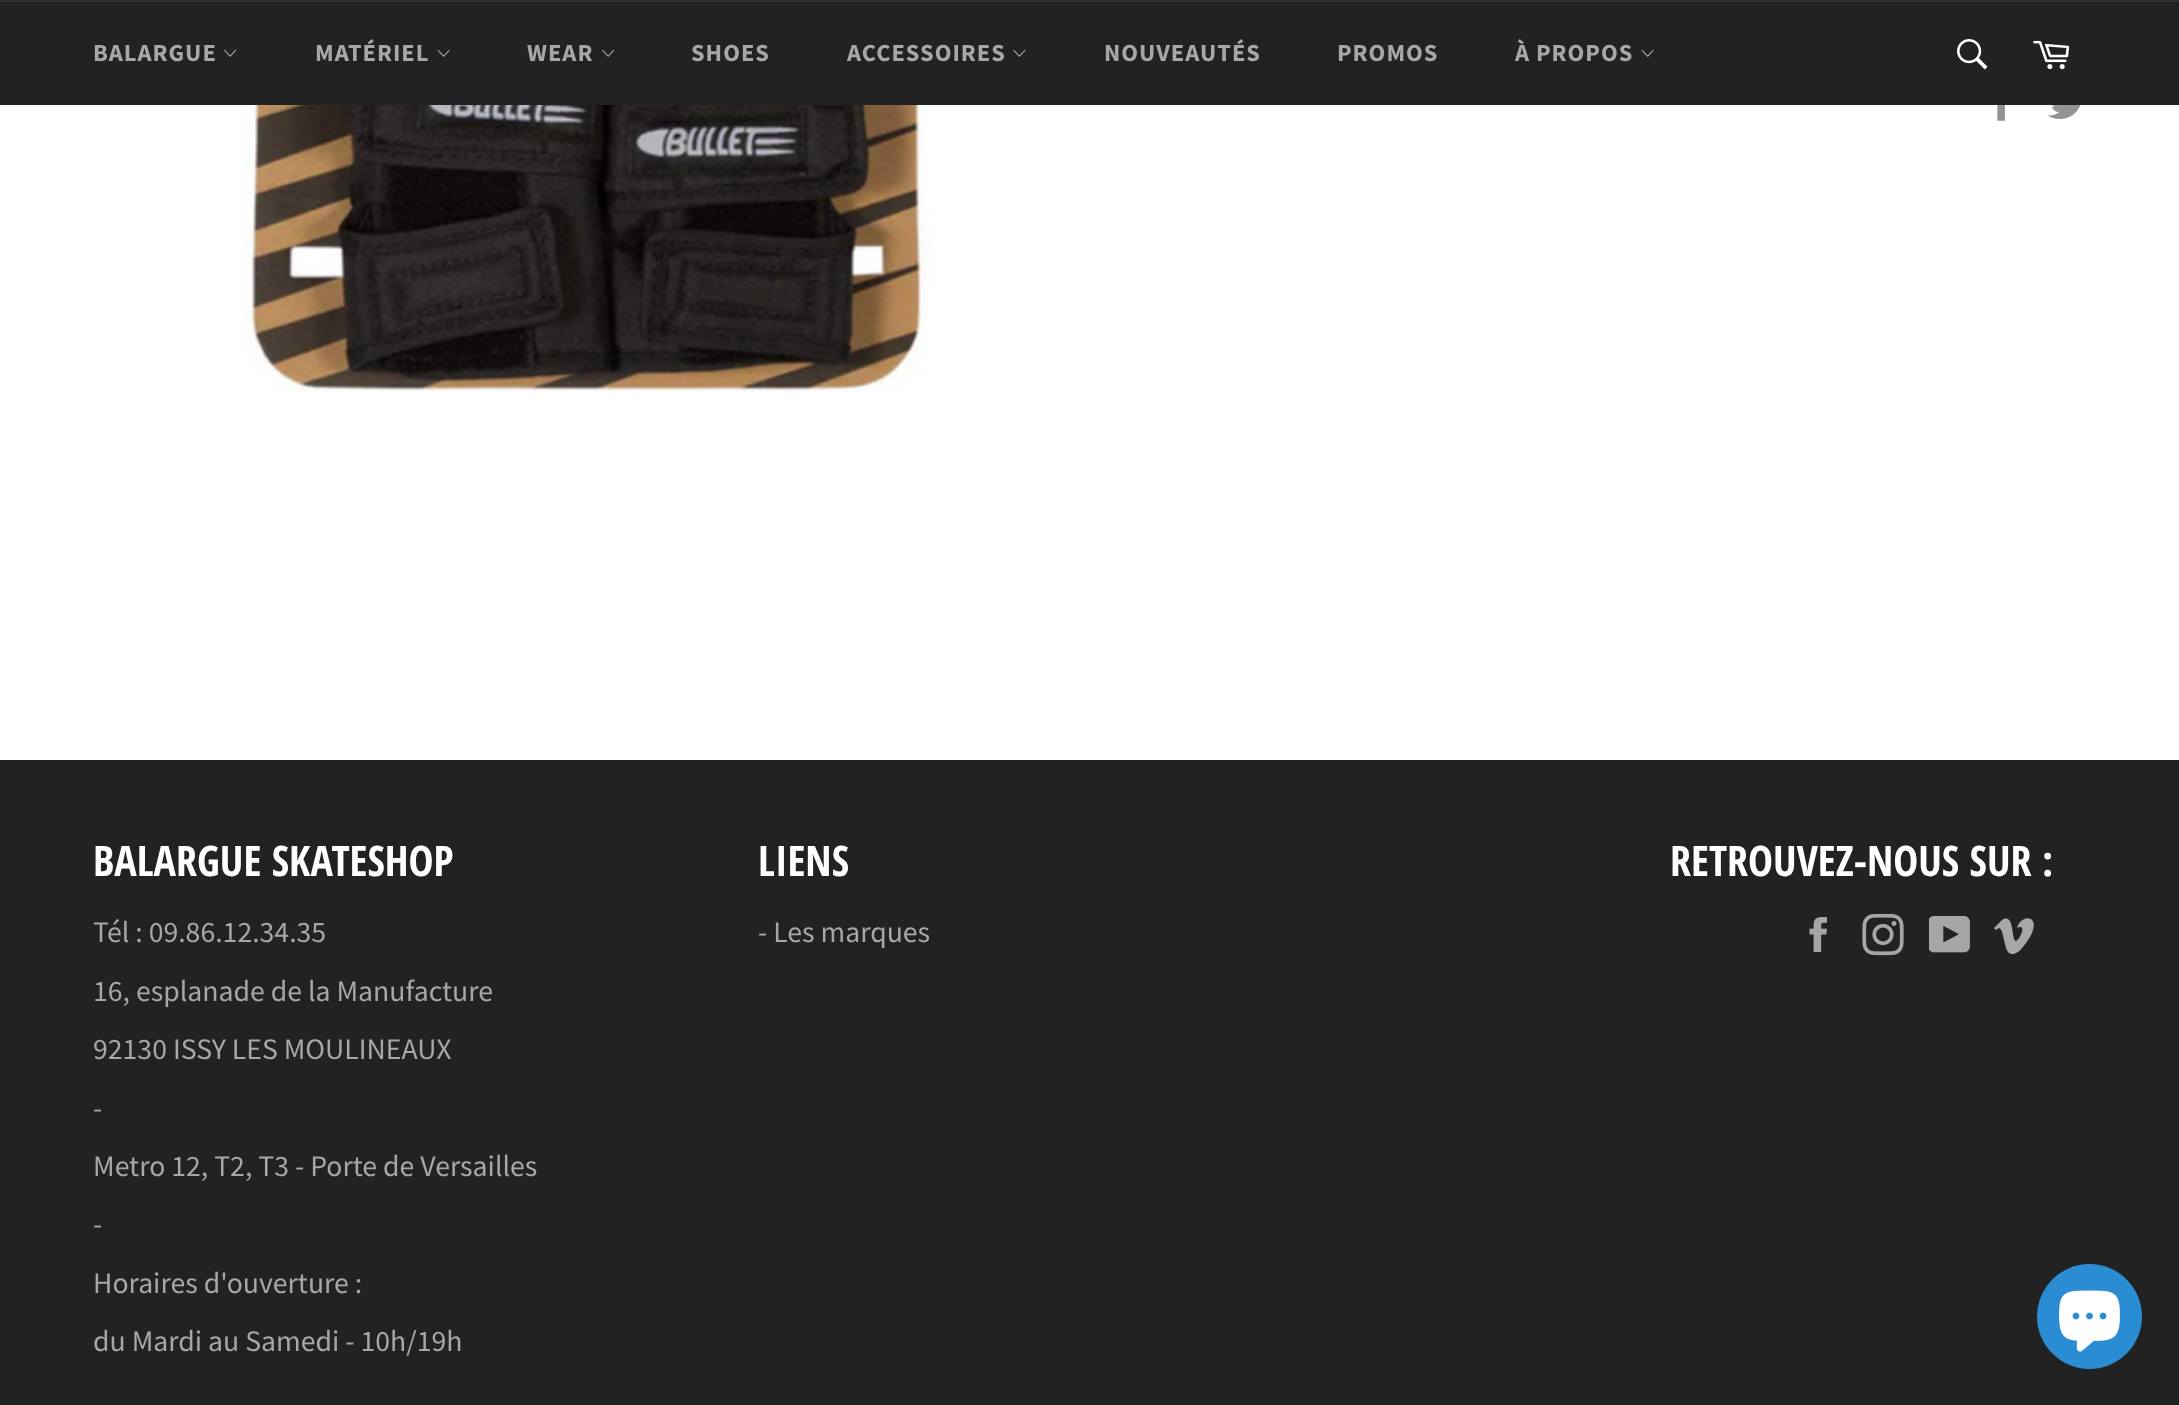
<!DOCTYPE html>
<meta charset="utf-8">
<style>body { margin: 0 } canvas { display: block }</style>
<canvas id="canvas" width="2179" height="1405"></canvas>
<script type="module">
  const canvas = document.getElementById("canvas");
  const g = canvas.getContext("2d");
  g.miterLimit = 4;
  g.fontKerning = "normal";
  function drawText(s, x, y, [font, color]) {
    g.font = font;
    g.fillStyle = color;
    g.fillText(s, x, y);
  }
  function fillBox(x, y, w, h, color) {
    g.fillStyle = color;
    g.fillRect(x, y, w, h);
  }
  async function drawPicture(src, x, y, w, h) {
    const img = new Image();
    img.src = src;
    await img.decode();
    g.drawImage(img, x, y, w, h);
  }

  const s1 = ["bold 24.5px Source Sans Pro", "#A7A7A7"];
  const s2 = ["bold 42px Open Sans Condensed", "#FFFFFF"];
  const s3 = ["29.75px Source Sans Pro", "#A7A7A7"];

  fillBox(0, 0, 2179, 1405, "#FFFFFF");
  fillBox(0, 2, 2179, 103, "#222222");
  fillBox(0, 0, 2179, 2, "#2F2F2F");
  g.letterSpacing = "1px";
  drawText("BALARGUE", 93, 61, s1);
  await drawPicture("pic1.png", 224, 49, 13, 8);
  drawText("MATÉRIEL", 315, 61, s1);
  await drawPicture("pic2.png", 437, 49, 13, 8);
  drawText("WEAR", 527, 61, s1);
  await drawPicture("pic1.png", 602, 49, 13, 8);
  drawText("SHOES", 691, 61, s1);
  drawText("ACCESSOIRES", 847, 61, s1);
  await drawPicture("pic3.png", 1013, 49, 13, 8);
  drawText("NOUVEAUTÉS", 1104, 61, s1);
  drawText("PROMOS", 1337, 61, s1);
  drawText("À PROPOS", 1515, 61, s1);
  await drawPicture("pic2.png", 1641, 49, 13, 8);
  await drawPicture("pic4.png", 1957, 39, 31, 31);
  await drawPicture("pic5.png", 2033, 40, 37, 30);
  await drawPicture("pic6.png", 244, 105, 687, 288);
  await drawPicture("pic7.png", 1997, 105, 8, 16);
  await drawPicture("pic8.png", 2047, 105, 34, 14);
  fillBox(0, 760, 2179, 645, "#222222");
  g.letterSpacing = "0px";
  drawText("BALARGUE SKATESHOP", 93, 876, s2);
  drawText("Tél : 09.86.12.34.35", 93, 942, s3);
  drawText("16, esplanade de la Manufacture", 93, 1001, s3);
  drawText("92130 ISSY LES MOULINEAUX", 93, 1059, s3);
  drawText("-", 93, 1118, s3);
  drawText("Metro 12, T2, T3 - Porte de Versailles", 93, 1176, s3);
  drawText("-", 93, 1234, s3);
  drawText("Horaires d'ouverture :", 93, 1293, s3);
  drawText("du Mardi au Samedi - 10h/19h", 93, 1351, s3);
  drawText("LIENS", 758, 876, s2);
  drawText("- Les marques", 758, 942, s3);
  drawText("RETROUVEZ-NOUS SUR :", 1670, 876, s2);
  await drawPicture("pic9.png", 1809, 917, 18, 35);
  await drawPicture("pic10.png", 1862, 914, 42, 42);
  await drawPicture("pic11.png", 1929, 916, 41, 37);
  g.fillStyle = "#A7A7A7";
  g.beginPath();
  g.moveTo(1994, 928);
  g.lineTo(1996, 930);
  g.lineTo(1999, 928);
  g.bezierCurveTo(2005, 929, 2003, 956, 2013, 954);
  g.bezierCurveTo(2019, 953, 2023, 947, 2026, 943);
  g.bezierCurveTo(2046, 916, 2022, 911, 2017, 928);
  g.bezierCurveTo(2028, 923, 2019, 941, 2016, 941);
  g.bezierCurveTo(2011, 941, 2015, 912, 2002, 920);
  g.closePath();
  g.fill();
  g.fillStyle = "#2A8DD4";
  g.beginPath();
  g.arc(2089.5, 1316.5, 52.5, 0, Math.PI * 2);
  g.fill();
  await drawPicture("pic12.png", 2059, 1290, 61, 62);
</script>
